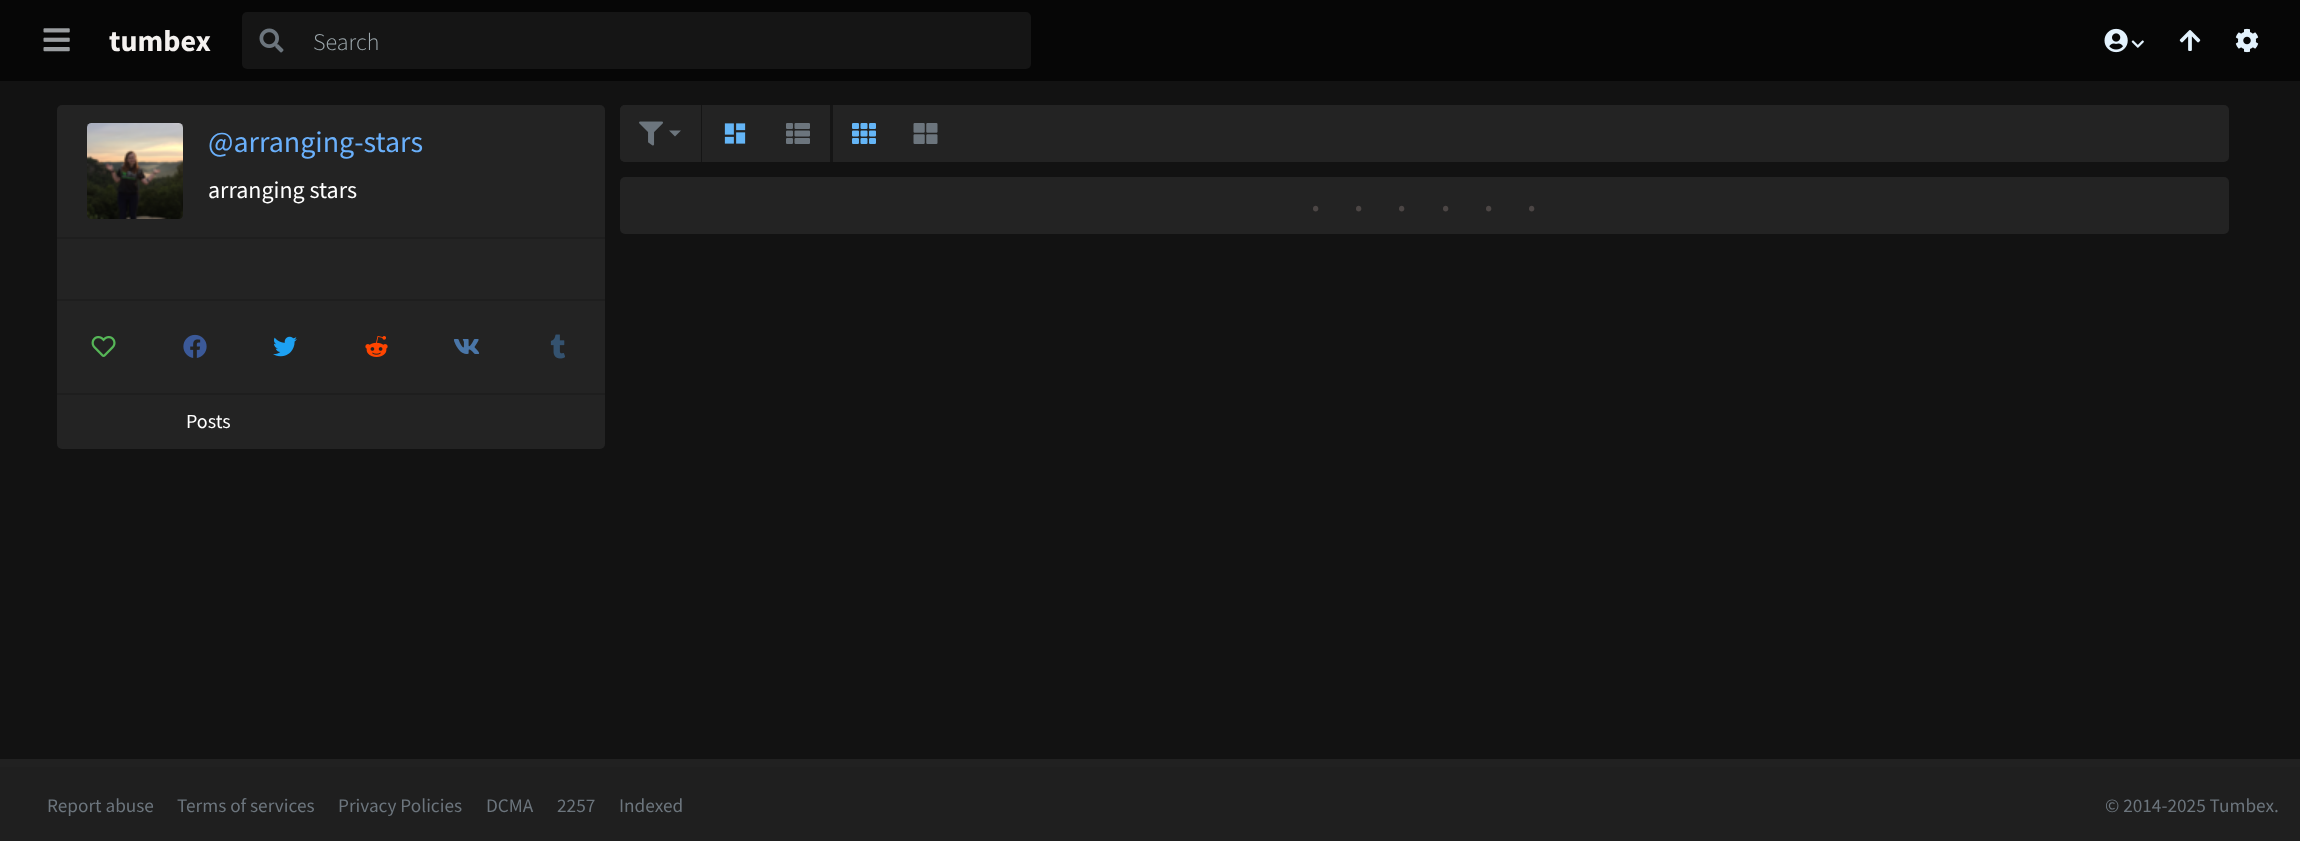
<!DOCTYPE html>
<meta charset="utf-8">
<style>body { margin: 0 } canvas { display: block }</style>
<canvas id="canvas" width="2300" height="841"></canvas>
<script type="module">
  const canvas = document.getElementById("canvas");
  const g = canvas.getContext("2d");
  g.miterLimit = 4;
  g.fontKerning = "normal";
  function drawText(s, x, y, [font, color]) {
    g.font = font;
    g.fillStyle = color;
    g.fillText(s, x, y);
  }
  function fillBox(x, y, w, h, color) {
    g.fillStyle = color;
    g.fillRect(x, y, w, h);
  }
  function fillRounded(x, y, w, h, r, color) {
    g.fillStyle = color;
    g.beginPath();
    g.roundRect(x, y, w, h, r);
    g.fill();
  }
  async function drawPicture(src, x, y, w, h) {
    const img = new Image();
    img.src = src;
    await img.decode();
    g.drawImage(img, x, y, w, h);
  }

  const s1 = ["bold 30px Source Sans Pro", "#F4F1EF"];
  const s2 = ["300 24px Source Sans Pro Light", "#9EA9AE"];
  const s3 = ["30px Source Sans Pro", "#6AB0FB"];
  const s4 = ["24px Source Sans Pro", "#FFFFFF"];
  const s5 = ["20px Source Sans Pro", "#FFFFFF"];
  const s6 = ["24px Source Sans Pro", "#4C4645"];
  const s7 = ["19.25px Source Sans Pro", "#6C757D"];

  fillBox(0, 0, 2300, 841, "#121212");
  fillBox(0, 0, 2300, 81, "#060606");
  await drawPicture("pic1.png", 43, 28, 27, 24);
  drawText("tumbex", 109, 51, s1);
  fillRounded(242, 12, 789, 57, 5, "#151515");
  await drawPicture("pic2.png", 259, 28, 25, 25);
  drawText("Search", 313, 50, s2);
  await drawPicture("pic3.png", 2104, 28, 24, 25);
  await drawPicture("pic4.png", 2131, 40, 13, 8);
  await drawPicture("pic5.png", 2179, 30, 22, 21);
  await drawPicture("pic6.png", 2235, 28, 24, 25);
  fillRounded(57, 105, 548, 344, 5, "#232323");
  fillBox(57, 237, 548, 2, "#1E1E1E");
  await drawPicture("pic7.png", 87, 123, 96, 96);
  drawText("@arranging-stars", 208, 152, s3);
  drawText("arranging stars", 208, 198, s4);
  fillBox(57, 299, 548, 2, "#1E1E1E");
  fillBox(57, 393, 548, 2, "#1E1E1E");
  await drawPicture("pic8.png", 91, 336, 25, 21);
  await drawPicture("pic9.png", 183, 334, 24, 24);
  await drawPicture("pic10.png", 273, 336, 24, 21);
  await drawPicture("pic11.png", 365, 336, 23, 21);
  await drawPicture("pic12.png", 453, 339, 27, 15);
  await drawPicture("pic13.png", 550, 334, 15, 25);
  drawText("Posts", 186, 428, s5);
  fillRounded(620, 105, 1609, 57, 5, "#232323");
  fillBox(701, 105, 1, 57, "#151515");
  g.fillStyle = "#232323";
  g.beginPath();
  g.roundRect(620, 105, 81, 57, [5, 0, 0, 5]);
  g.fill();
  await drawPicture("pic14.png", 639, 121, 24, 25);
  g.fillStyle = "#6C757D";
  g.beginPath();
  g.moveTo(669, 130.5);
  g.lineTo(681, 130.5);
  g.lineTo(675, 136.5);
  g.closePath();
  g.fill();
  fillBox(830, 105, 3, 57, "#151515");
  await drawPicture("pic15.png", 724, 123, 22, 21);
  await drawPicture("pic16.png", 786, 123, 24, 21);
  await drawPicture("pic17.png", 852, 123, 24, 21);
  await drawPicture("pic18.png", 913, 123, 25, 21);
  fillRounded(620, 177, 1609, 57, 5, "#232323");
  drawText("•", 1312, 215, s6);
  drawText("•", 1355, 215, s6);
  drawText("•", 1398, 215, s6);
  drawText("•", 1442, 215, s6);
  drawText("•", 1485, 215, s6);
  drawText("•", 1528, 215, s6);
  fillBox(0, 767, 2300, 74, "#1F1F1F");
  fillBox(0, 759, 2300, 8, "#212121");
  drawText("Report abuse", 47, 812, s7);
  drawText("Terms of services", 177, 812, s7);
  drawText("Privacy Policies", 338, 812, s7);
  drawText("DCMA", 486, 812, s7);
  drawText("2257", 557, 812, s7);
  drawText("Indexed", 619, 812, s7);
  drawText("© 2014-2025 Tumbex.", 2105, 812, s7);
</script>
